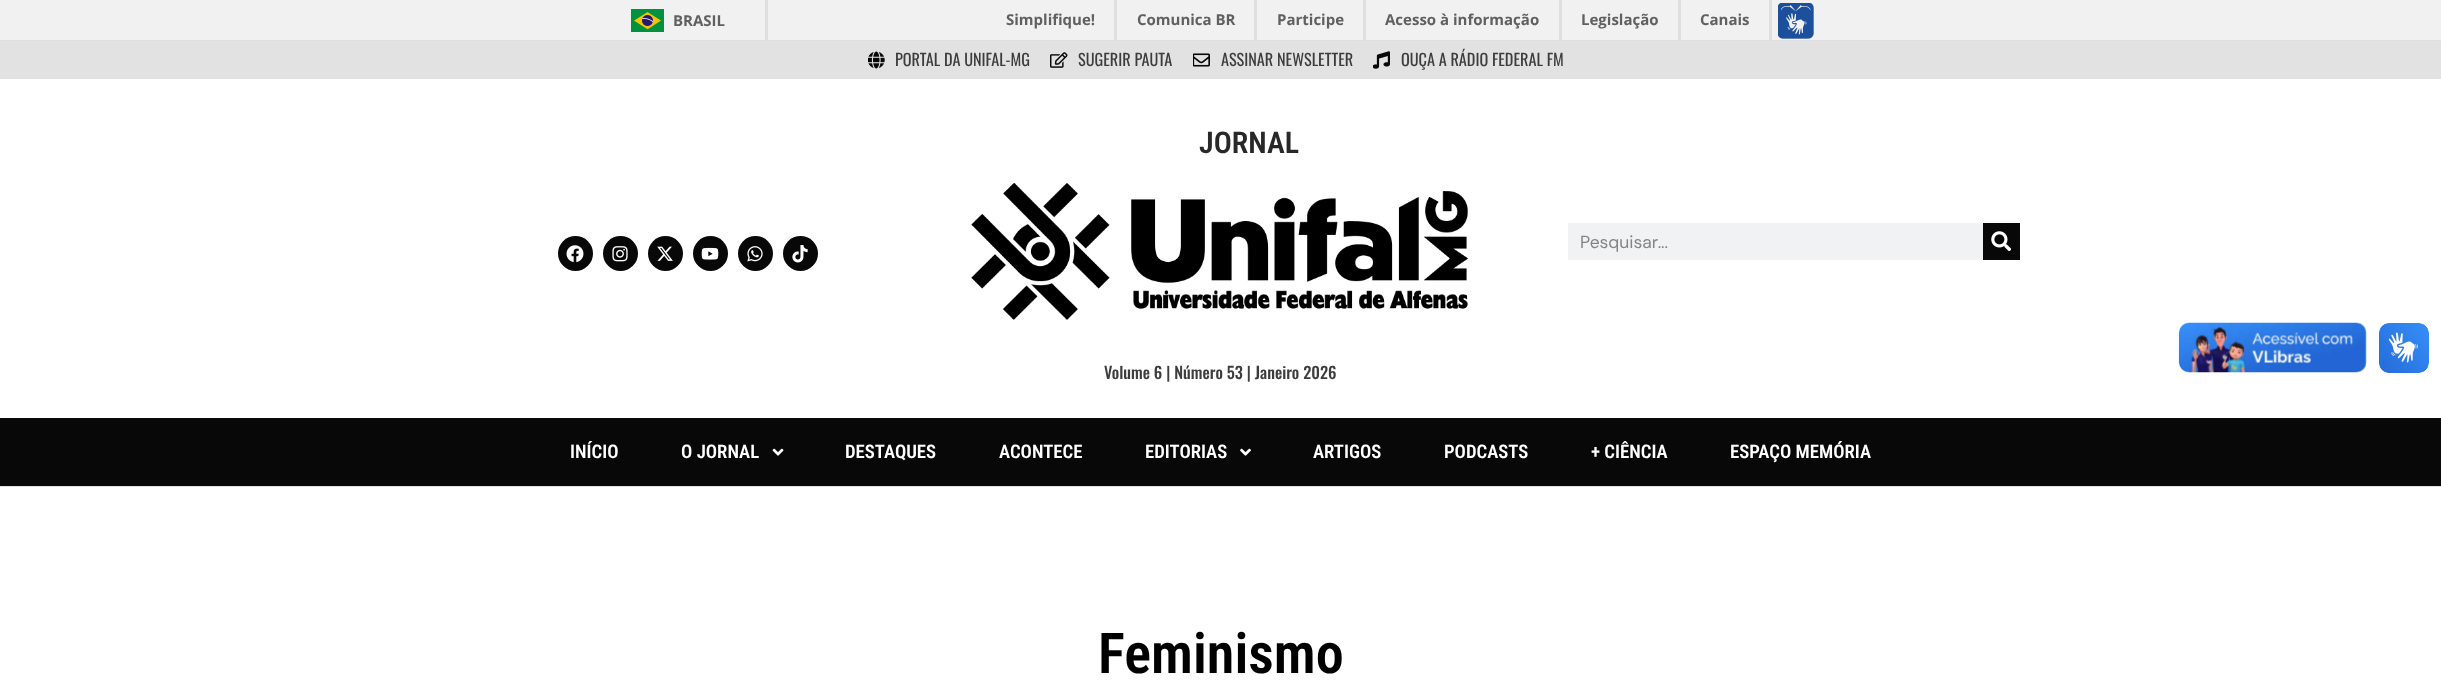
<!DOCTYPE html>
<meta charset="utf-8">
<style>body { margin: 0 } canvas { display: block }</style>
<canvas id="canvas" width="2441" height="693"></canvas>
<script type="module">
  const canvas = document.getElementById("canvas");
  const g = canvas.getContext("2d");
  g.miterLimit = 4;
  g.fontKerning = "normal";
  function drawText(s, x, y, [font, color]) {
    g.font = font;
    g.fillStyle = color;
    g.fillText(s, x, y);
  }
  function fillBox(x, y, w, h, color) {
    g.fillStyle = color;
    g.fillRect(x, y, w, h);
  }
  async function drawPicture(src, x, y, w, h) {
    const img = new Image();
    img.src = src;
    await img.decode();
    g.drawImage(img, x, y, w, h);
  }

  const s1 = ["bold 15px Open Sans", "#606060"];
  const s2 = ["16.25px Oswald", "#3D3D3D"];
  const s3 = ["600 30px Roboto Condensed", "#282828"];
  const s4 = ["500 16.25px Oswald", "#3D3D3D"];
  const s5 = ["17.5px DM Sans", "#858586"];
  const s6 = ["600 18.75px Roboto Condensed", "#FFFFFF"];
  const s7 = ["600 56.25px Roboto Condensed", "#000000"];

  fillBox(0, 0, 2441, 693, "#FFFFFF");
  fillBox(0, 0, 2441, 40, "#F1F1F1");
  fillBox(0, 40, 2441, 1, "#DFDFDF");
  fillBox(765, 0, 3, 40, "#DFDFDF");
  await drawPicture("pic1.png", 631, 9, 33, 23);
  drawText("BRASIL", 673, 26, s1);
  fillBox(1114, 0, 3, 40, "#DFDFDF");
  drawText("Simplifique!", 1006, 25, s1);
  fillBox(1254, 0, 3, 40, "#DFDFDF");
  drawText("Comunica BR", 1137, 25, s1);
  fillBox(1363, 0, 3, 40, "#DFDFDF");
  drawText("Participe", 1277, 25, s1);
  fillBox(1559, 0, 3, 40, "#DFDFDF");
  drawText("Acesso à informação", 1385, 25, s1);
  fillBox(1678, 0, 3, 40, "#DFDFDF");
  drawText("Legislação", 1581, 25, s1);
  fillBox(1769, 0, 3, 40, "#DFDFDF");
  drawText("Canais", 1700, 25, s1);
  await drawPicture("pic2.png", 1778, 3, 36, 36);
  fillBox(0, 41, 2441, 38, "#E2E2E2");
  await drawPicture("pic3.png", 868, 51, 17, 18);
  drawText("PORTAL DA UNIFAL-MG", 895, 66, s2);
  await drawPicture("pic4.png", 1050, 52, 18, 16);
  drawText("SUGERIR PAUTA", 1078, 66, s2);
  await drawPicture("pic5.png", 1193, 53, 17, 14);
  drawText("ASSINAR NEWSLETTER", 1221, 66, s2);
  await drawPicture("pic6.png", 1373, 51, 17, 18);
  drawText("OUÇA A RÁDIO FEDERAL FM", 1401, 66, s2);
  g.fillStyle = "#080808";
  g.beginPath();
  g.arc(575.5, 253.5, 17.5, 0, Math.PI * 2);
  g.fill();
  await drawPicture("pic7.png", 566, 245, 18, 18);
  g.beginPath();
  g.arc(620.5, 253.5, 17.5, 0, Math.PI * 2);
  g.fill();
  await drawPicture("pic8.png", 612, 246, 16, 16);
  g.beginPath();
  g.arc(665.5, 253.5, 17.5, 0, Math.PI * 2);
  g.fill();
  await drawPicture("pic9.png", 657, 246, 16, 15);
  g.beginPath();
  g.arc(710.5, 253.5, 17.5, 0, Math.PI * 2);
  g.fill();
  await drawPicture("pic10.png", 701, 247, 18, 13);
  g.beginPath();
  g.arc(755.5, 253.5, 17.5, 0, Math.PI * 2);
  g.fill();
  await drawPicture("pic11.png", 747, 246, 16, 16);
  g.beginPath();
  g.arc(800.5, 253.5, 17.5, 0, Math.PI * 2);
  g.fill();
  await drawPicture("pic12.png", 792, 245, 16, 18);
  drawText("JORNAL", 1199, 153, s3);
  await drawPicture("pic13.png", 971, 183, 498, 137);
  drawText("Volume 6 | Número 53 | Janeiro 2026", 1104, 379, s4);
  fillBox(1568, 223, 415, 37, "#F1F2F3");
  drawText("Pesquisar...", 1580, 248, s5);
  fillBox(1983, 223, 37, 37, "#080808");
  await drawPicture("pic14.png", 1991, 231, 20, 20);
  fillBox(0, 418, 2441, 68, "#080808");
  drawText("INÍCIO", 570, 458, s6);
  drawText("O JORNAL", 681, 458, s6);
  await drawPicture("pic15.png", 772, 448, 12, 8);
  drawText("DESTAQUES", 845, 458, s6);
  drawText("ACONTECE", 999, 458, s6);
  drawText("EDITORIAS", 1145, 458, s6);
  await drawPicture("pic16.png", 1240, 448, 11, 8);
  drawText("ARTIGOS", 1313, 458, s6);
  drawText("PODCASTS", 1444, 458, s6);
  drawText("+ CIÊNCIA", 1591, 458, s6);
  drawText("ESPAÇO MEMÓRIA", 1730, 458, s6);
  fillBox(0, 486, 2441, 1, "#E2E2E2");
  await drawPicture("pic17.png", 2178, 322, 189, 51);
  await drawPicture("pic18.png", 2379, 323, 50, 50);
  drawText("Feminismo", 1098, 673, s7);
</script>
